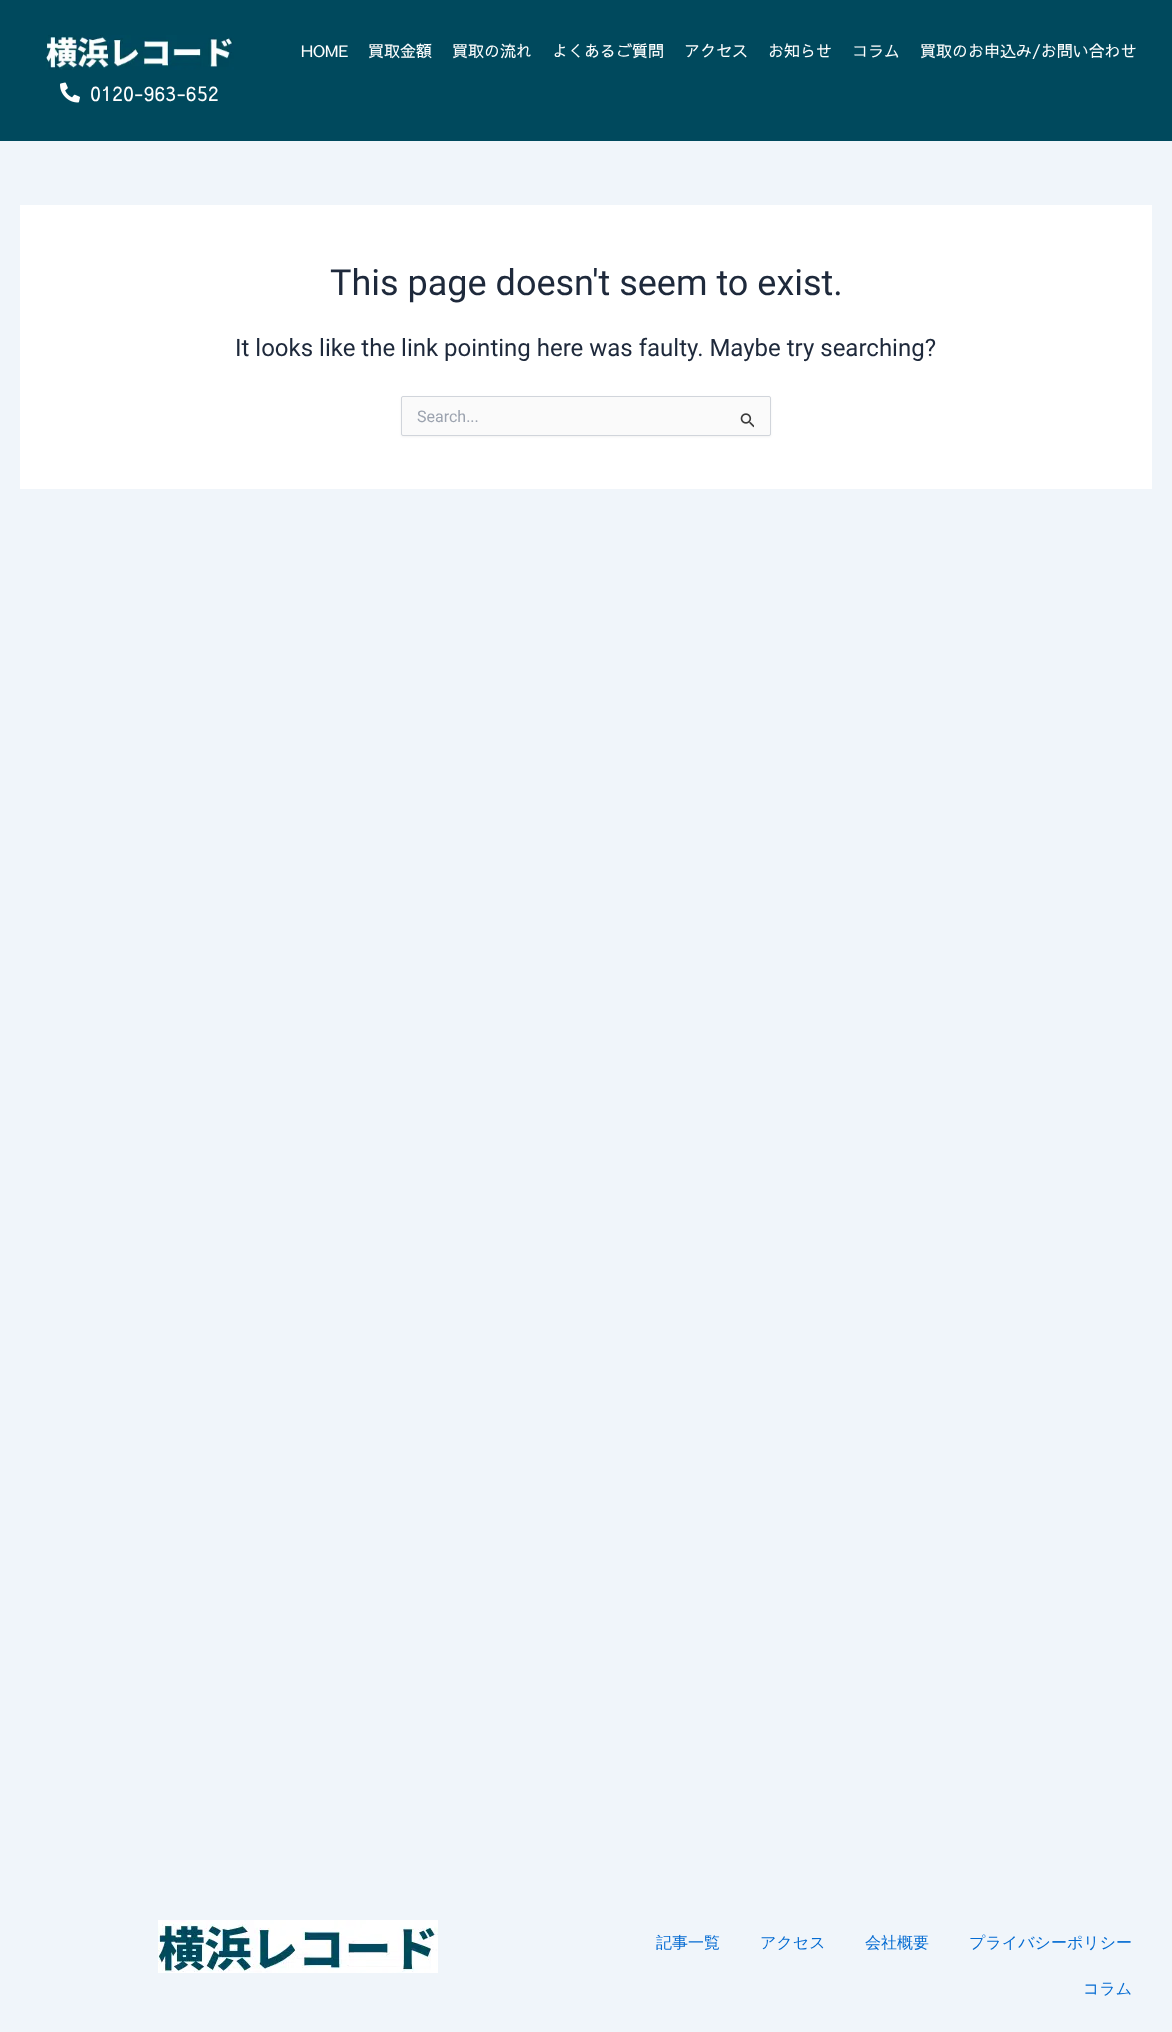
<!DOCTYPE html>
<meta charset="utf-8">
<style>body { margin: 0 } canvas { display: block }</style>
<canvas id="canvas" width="1172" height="2032"></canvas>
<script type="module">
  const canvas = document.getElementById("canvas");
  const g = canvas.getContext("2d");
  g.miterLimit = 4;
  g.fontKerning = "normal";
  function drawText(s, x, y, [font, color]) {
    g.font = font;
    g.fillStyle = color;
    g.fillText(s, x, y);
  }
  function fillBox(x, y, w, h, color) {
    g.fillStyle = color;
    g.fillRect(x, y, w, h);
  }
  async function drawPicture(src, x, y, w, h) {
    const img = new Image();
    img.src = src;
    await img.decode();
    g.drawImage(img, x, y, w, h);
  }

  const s1 = ["16px Sawarabi Gothic", "#FFFFFF"];
  const s2 = ["20px Sawarabi Gothic", "#FFFFFF"];
  const s3 = ["36px Roboto", "#1E293B"];
  const s4 = ["24px Roboto", "#1E293B"];
  const s5 = ["16px Roboto", "#9CA3AF"];
  const s6 = ["500 16px WenQuanYi Zen Hei", "#046BD2"];

  fillBox(0, 0, 1172, 2032, "#F0F5FA");
  fillBox(0, 0, 1172, 141, "#00495D");
  await drawPicture("pic1.png", 45, 35, 189, 35);
  drawText("HOME", 301, 57, s1);
  drawText("買取金額", 368, 57, s1);
  drawText("買取の流れ", 452, 57, s1);
  drawText("よくあるご質問", 552, 57, s1);
  drawText("アクセス", 684, 57, s1);
  drawText("お知らせ", 768, 57, s1);
  drawText("コラム", 852, 57, s1);
  drawText("買取のお申込み/お問い合わせ", 920, 57, s1);
  await drawPicture("pic2.png", 60, 82, 20, 21);
  drawText("0120-963-652", 90, 101, s2);
  fillBox(20, 205, 1132, 284, "#FFFFFF");
  drawText("This page doesn't seem to exist.", 330, 295, s3);
  drawText("It looks like the link pointing here was faulty. Maybe try searching?", 235, 356, s4);
  g.fillStyle = "rgba(0, 0, 0, 0.05)";
  g.filter = "blur(1px)";
  g.beginPath();
  g.roundRect(401, 397, 370, 40, 2);
  g.fill();
  g.filter = "none";
  g.fillStyle = "#FAFAFA";
  g.beginPath();
  g.roundRect(401.5, 396.5, 369, 39, 1.5);
  g.fill();
  g.strokeStyle = "#D1D5DB";
  g.stroke();
  drawText("Search...", 417, 422, s5);
  await drawPicture("pic3.png", 740, 413, 14, 15);
  await drawPicture("pic4.png", 158, 1920, 280, 53);
  drawText("記事一覧", 656, 1948, s6);
  drawText("アクセス", 760, 1948, s6);
  drawText("会社概要", 865, 1948, s6);
  drawText("プライバシーポリシー", 969, 1948, s6);
  drawText("コラム", 1083, 1994, s6);
</script>
